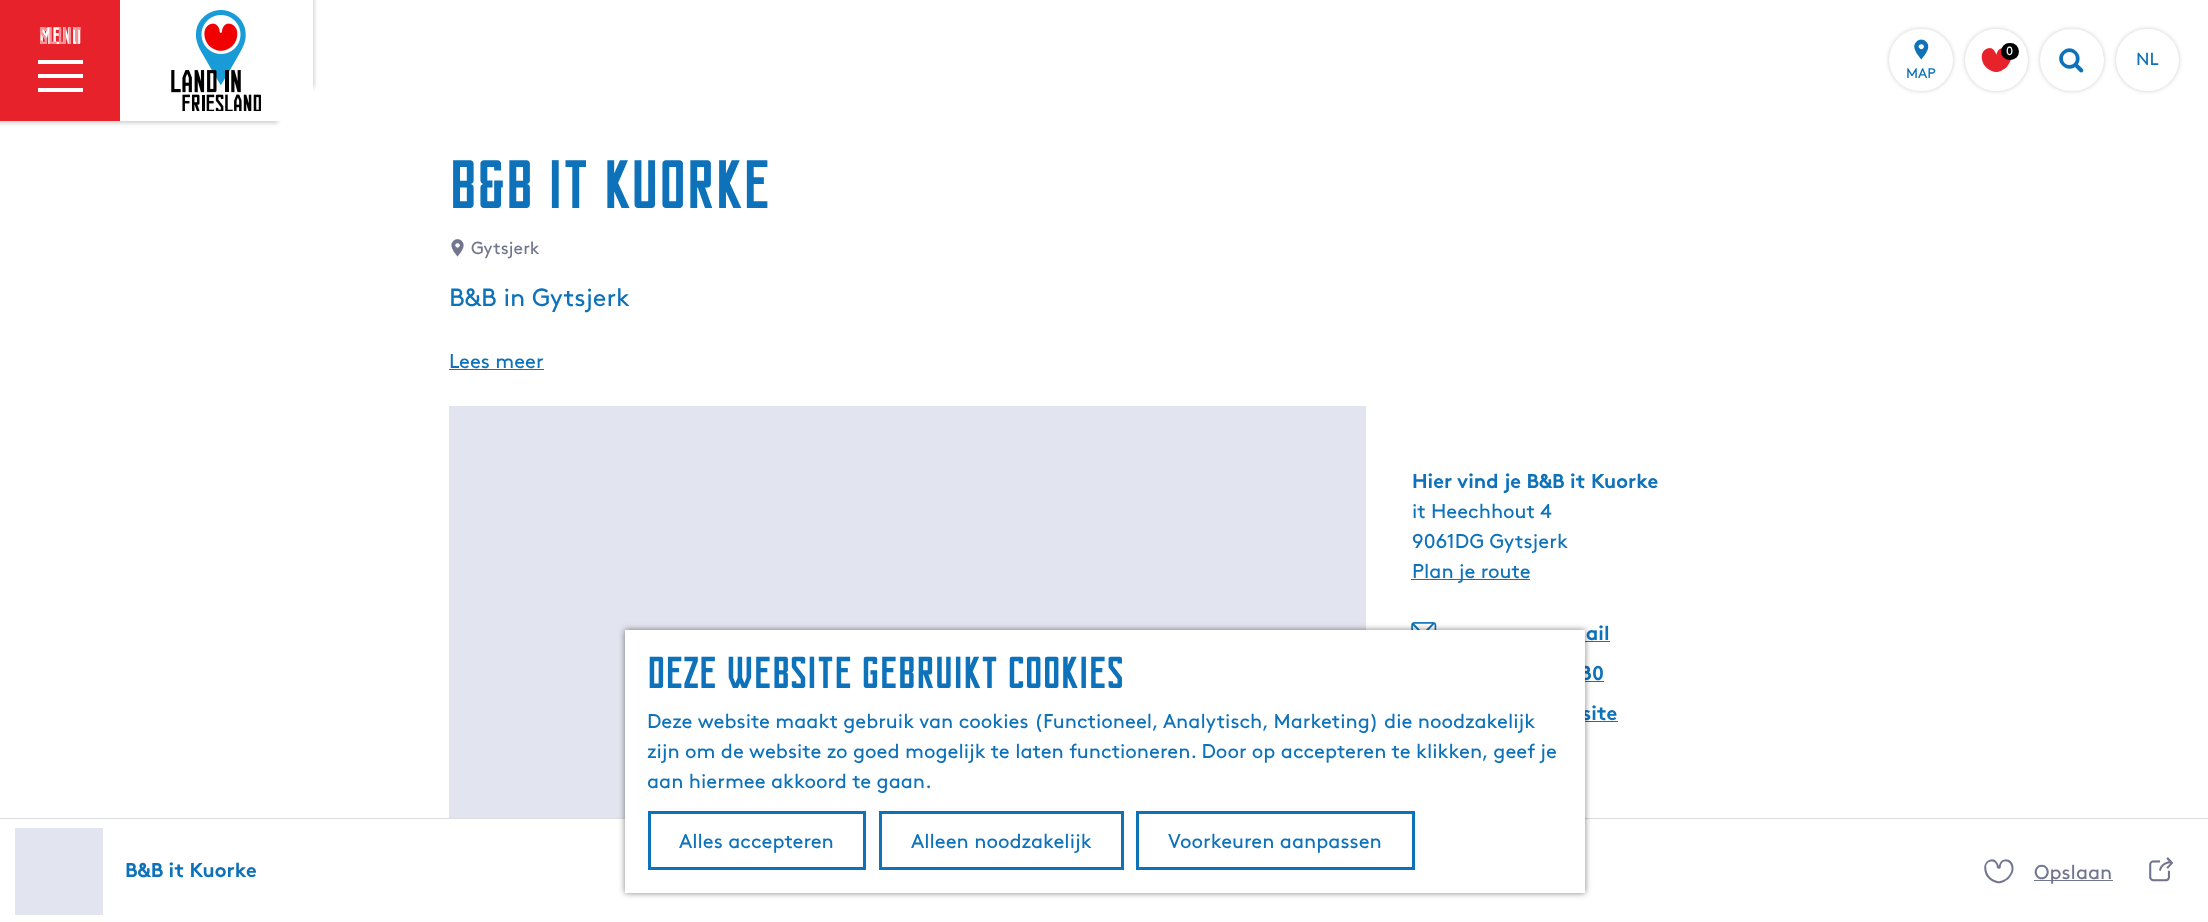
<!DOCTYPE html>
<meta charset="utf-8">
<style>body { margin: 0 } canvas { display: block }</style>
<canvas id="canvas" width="2208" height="922"></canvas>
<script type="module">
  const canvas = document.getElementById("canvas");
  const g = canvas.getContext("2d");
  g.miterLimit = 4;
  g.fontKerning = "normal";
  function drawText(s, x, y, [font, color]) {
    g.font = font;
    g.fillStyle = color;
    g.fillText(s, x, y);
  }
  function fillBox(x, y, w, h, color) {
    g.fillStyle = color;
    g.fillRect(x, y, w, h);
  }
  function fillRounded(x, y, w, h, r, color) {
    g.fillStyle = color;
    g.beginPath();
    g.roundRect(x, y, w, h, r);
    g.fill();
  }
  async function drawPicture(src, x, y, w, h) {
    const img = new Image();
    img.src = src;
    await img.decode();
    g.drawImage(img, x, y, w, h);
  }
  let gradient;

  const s1 = ["24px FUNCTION", "#FFFFFF"];
  const s2 = ["24px FUNCTION", "#F49397"];
  const s3 = ["12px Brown", "#FFFFFF"];
  const s4 = ["14px Brown", "#0D72B9"];
  const s5 = ["17.5px Brown", "#0D72B9"];
  const s6 = ["68.75px FUNCTION", "#0D72B9"];
  const s7 = ["17.5px Brown", "#71758E"];
  const s8 = ["25px Brown", "#0D72B9"];
  const s9 = ["20px Brown", "#0D72B9"];
  const s10 = ["bold 20px Brown", "#0D72B9"];
  const s11 = ["20px Brown", "#71758E"];
  const s12 = ["45px FUNCTION", "#0D72B9"];

  fillBox(0, 0, 2208, 922, "#FFFFFF");
  g.fillStyle = "rgba(0, 0, 0, 0.2)";
  g.filter = "blur(2px)";
  g.beginPath();
  g.rect(1, -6, 313, 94);
  g.fill();
  g.filter = "none";
  g.filter = "blur(2px)";
  g.beginPath();
  g.rect(-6, 1, 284, 122);
  g.fill();
  g.filter = "none";
  fillBox(0, 0, 120, 121, "#E8222A");
  drawText("menu", 39, 44, s1);
  drawText("sluit", 39, 44, s2);
  fillBox(38, 74, 45, 4, "#FFFFFF");
  fillBox(38, 60, 45, 4, "#FFFFFF");
  fillBox(38, 88, 45, 4, "#FFFFFF");
  gradient = g.createLinearGradient(295, 139, 138, -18);
  gradient.addColorStop(0.08, "rgba(255, 255, 255, 0)");
  gradient.addColorStop(0.08, "#FFFFFF");
  g.fillStyle = gradient;
  g.fillRect(120, 0, 193, 121);
  await drawPicture("pic1.png", 171, 10, 90, 101);
  g.fillStyle = "rgba(0, 0, 0, 0.2)";
  g.filter = "blur(2px)";
  g.beginPath();
  g.roundRect(1965, 29, 63, 62, 31);
  g.fill();
  g.filter = "none";
  fillRounded(1965, 29, 63, 62, 31, "#FFFFFF");
  await drawPicture("pic2.png", 1981, 48, 30, 24);
  fillRounded(2001, 43, 18, 17, 8.5, "#000000");
  drawText("0", 2006, 55, s3);
  g.fillStyle = "rgba(0, 0, 0, 0.2)";
  g.filter = "blur(2px)";
  g.beginPath();
  g.roundRect(2040, 29, 64, 62, 31);
  g.fill();
  g.filter = "none";
  fillRounded(2040, 29, 64, 62, 31, "#FFFFFF");
  await drawPicture("pic3.png", 2059, 48, 25, 25);
  g.fillStyle = "rgba(0, 0, 0, 0.2)";
  g.filter = "blur(2px)";
  g.beginPath();
  g.roundRect(1889, 29, 64, 62, 31);
  g.fill();
  g.filter = "none";
  fillRounded(1889, 29, 64, 62, 31, "#FFFFFF");
  await drawPicture("pic4.png", 1914, 39, 15, 21);
  drawText("MAP", 1906, 78, s4);
  g.fillStyle = "rgba(0, 0, 0, 0.2)";
  g.filter = "blur(2px)";
  g.beginPath();
  g.roundRect(2116, 29, 63, 62, 31);
  g.fill();
  g.filter = "none";
  fillRounded(2116, 29, 63, 62, 31, "#FFFFFF");
  drawText("NL", 2136, 65, s5);
  drawText("B&B it Kuorke", 449, 208, s6);
  await drawPicture("pic5.png", 451, 239, 13, 18);
  drawText("Gytsjerk", 471, 254, s7);
  drawText("B&B in Gytsjerk", 449, 306, s8);
  drawText("Lees meer", 449, 368, s9);
  fillBox(449, 369, 95, 1, "#0D72B9");
  fillBox(449, 406, 917, 412, "#E2E4EF");
  drawText("Hier vind je B&B it Kuorke", 1412, 488, s10);
  drawText("it Heechhout 4", 1412, 518, s9);
  drawText("9061DG Gytsjerk", 1412, 548, s9);
  fillBox(1411, 579, 119, 1, "#0D72B9");
  drawText("Plan je route", 1412, 578, s9);
  await drawPicture("pic6.png", 1411, 622, 26, 8);
  drawText("ail", 1586, 640, s10);
  fillBox(1585, 641, 25, 1, "#0D72B9");
  drawText("80", 1580, 680, s10);
  fillBox(1585, 681, 19, 1, "#0D72B9");
  drawText("site", 1582, 720, s10);
  fillBox(1585, 721, 33, 1, "#0D72B9");
  fillBox(0, 818, 2208, 1, "#DCDDDE");
  fillBox(15, 828, 88, 87, "#E2E4EF");
  drawText("B&B it Kuorke", 125, 877, s10);
  await drawPicture("pic7.png", 1984, 859, 30, 25);
  fillBox(2034, 880, 79, 1, "#71758E");
  drawText("Opslaan", 2034, 879, s11);
  await drawPicture("pic8.png", 2149, 857, 25, 25);
  g.fillStyle = "rgba(0, 0, 0, 0.5)";
  g.filter = "blur(3px)";
  g.beginPath();
  g.rect(625, 630, 960, 263);
  g.fill();
  g.filter = "none";
  fillBox(625, 630, 960, 263, "#FFFFFF");
  drawText("Deze website gebruikt cookies", 647, 688, s12);
  drawText("Deze website maakt gebruik van cookies (Functioneel, Analytisch, Marketing) die noodzakelijk", 647, 728, s9);
  drawText("zijn om de website zo goed mogelijk te laten functioneren. Door op accepteren te klikken, geef je", 647, 758, s9);
  g.save();
  g.beginPath();
  g.rect(648, 653, 915, 158);
  g.clip();
  drawText("aan hiermee akkoord te gaan.", 647, 788, s9);
  g.restore();
  g.strokeStyle = "#0D72B9";
  g.lineWidth = 3;
  g.strokeRect(649.5, 812.5, 215, 56);
  drawText("Alles accepteren", 679, 848, s9);
  g.strokeRect(880.5, 812.5, 242, 56);
  drawText("Alleen noodzakelijk", 911, 848, s9);
  g.strokeRect(1137.5, 812.5, 276, 56);
  drawText("Voorkeuren aanpassen", 1168, 848, s9);
</script>
